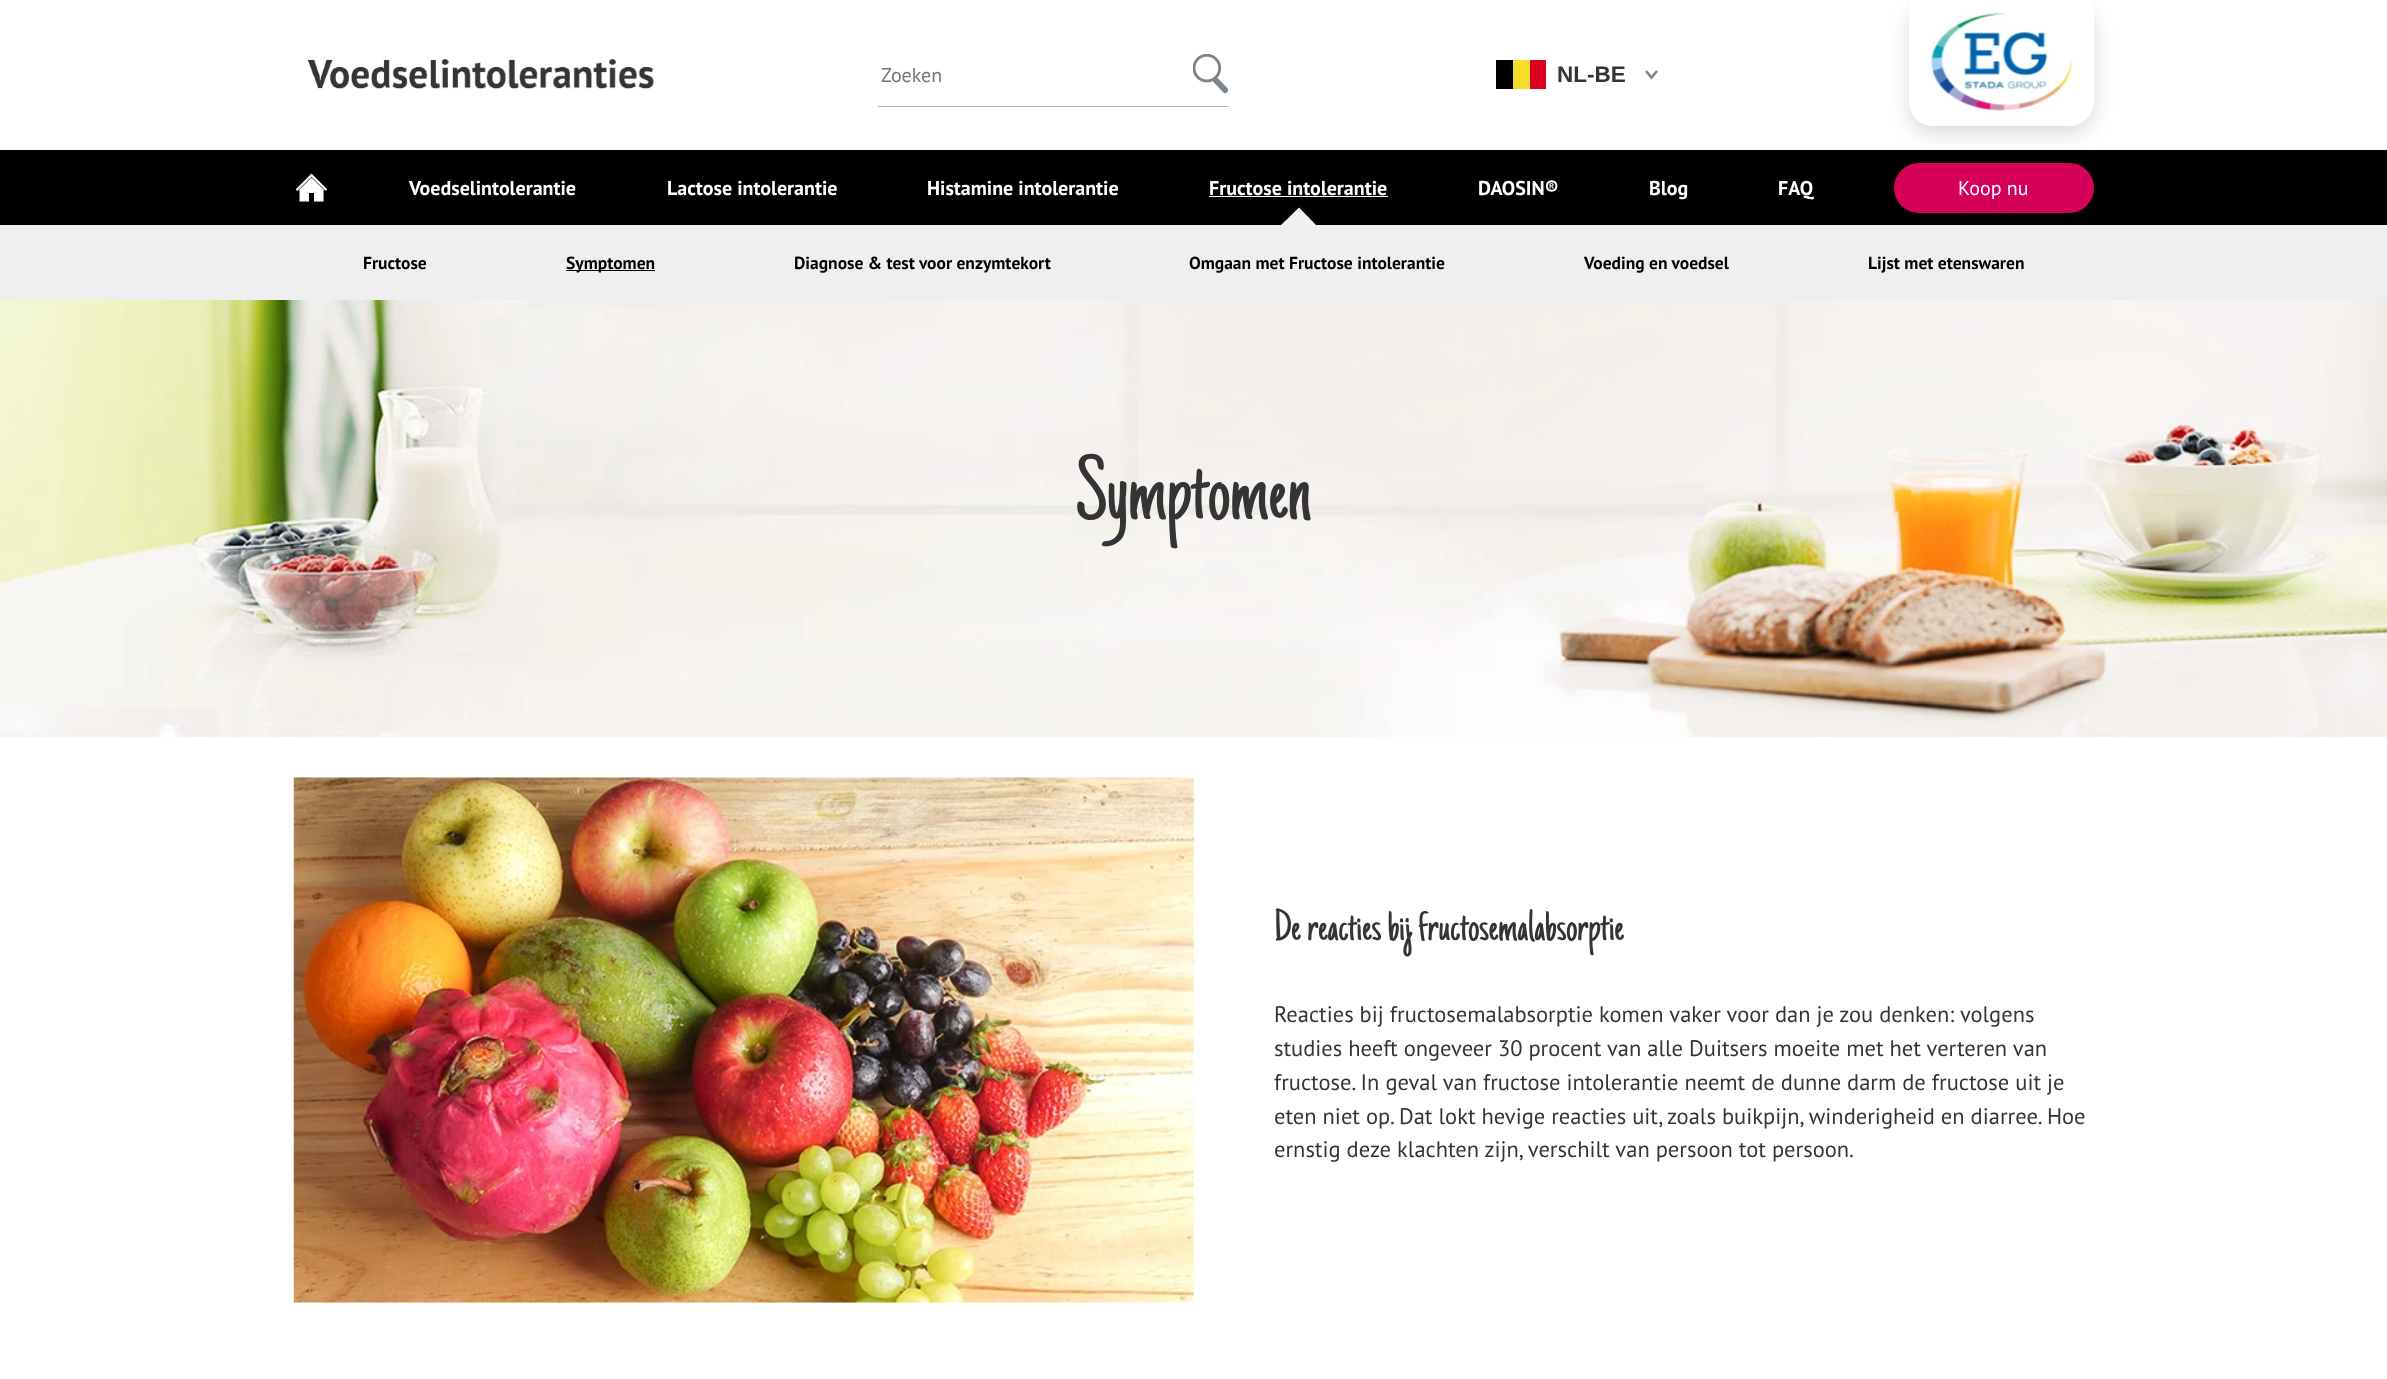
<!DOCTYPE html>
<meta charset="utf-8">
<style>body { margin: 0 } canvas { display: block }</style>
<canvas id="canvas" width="2387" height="1379"></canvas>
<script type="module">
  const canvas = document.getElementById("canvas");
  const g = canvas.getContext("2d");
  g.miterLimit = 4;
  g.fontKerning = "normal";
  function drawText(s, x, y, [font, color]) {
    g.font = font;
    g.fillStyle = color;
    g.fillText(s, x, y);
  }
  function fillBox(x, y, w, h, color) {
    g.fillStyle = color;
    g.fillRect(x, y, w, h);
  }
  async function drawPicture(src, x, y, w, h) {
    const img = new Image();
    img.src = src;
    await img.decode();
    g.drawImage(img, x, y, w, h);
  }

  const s1 = ["20px PT Sans", "#757575"];
  const s2 = ["bold 22.5px Liberation Sans", "#343434"];
  const s3 = ["bold 20px PT Sans", "#FFFFFF"];
  const s4 = ["20px PT Sans", "#FFFFFF"];
  const s5 = ["bold 17.5px PT Sans", "#000000"];
  const s6 = ["90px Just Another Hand", "#343434"];
  const s7 = ["45px Just Another Hand", "#343434"];
  const s8 = ["22.5px PT Sans", "#343434"];

  fillBox(0, 0, 2387, 1379, "#FFFFFF");
  await drawPicture("pic1.png", 307, 59, 347, 30);
  fillBox(878, 106, 350, 1, "#B0B1B1");
  drawText("Zoeken", 881, 82, s1);
  await drawPicture("pic2.png", 1193, 54, 35, 40);
  fillBox(1496, 60, 17, 29, "#000000");
  fillBox(1513, 60, 17, 29, "#F7DE29");
  fillBox(1530, 60, 16, 29, "#DA001E");
  drawText("NL-BE", 1557, 82, s2);
  g.beginPath();
  g.moveTo(1657, 71);
  g.lineTo(1651.5, 77.5);
  g.lineTo(1646, 71);
  g.strokeStyle = "#7C858C";
  g.lineWidth = 2.5;
  g.stroke();
  g.save();
  g.beginPath();
  g.moveTo(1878, 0);
  g.lineTo(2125, 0);
  g.lineTo(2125, 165);
  g.lineTo(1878, 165);
  g.closePath();
  g.moveTo(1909, -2);
  g.lineTo(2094, -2);
  g.lineTo(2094, 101);
  g.bezierCurveTo(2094, 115, 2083, 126, 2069, 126);
  g.lineTo(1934, 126);
  g.bezierCurveTo(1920, 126, 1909, 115, 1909, 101);
  g.closePath();
  g.clip("evenodd");
  g.fillStyle = "rgba(0, 0, 0, 0.14)";
  g.filter = "blur(10px)";
  g.beginPath();
  g.roundRect(1909, 5, 185, 129, 25);
  g.fill();
  g.filter = "none";
  g.restore();
  await drawPicture("pic3.png", 1915, 12, 174, 114);
  fillBox(0, 150, 2387, 75, "#000000");
  await drawPicture("pic4.png", 295, 173, 33, 29);
  drawText("Voedselintolerantie", 409, 195, s3);
  drawText("Lactose intolerantie", 667, 195, s3);
  drawText("Histamine intolerantie", 927, 195, s3);
  drawText("Fructose intolerantie", 1209, 195, s3);
  fillBox(1209, 196, 179, 1, "#FFFFFF");
  g.fillStyle = "#EFEFEF";
  g.beginPath();
  g.moveTo(1316, 225);
  g.lineTo(1281, 225);
  g.lineTo(1299, 207.5);
  g.closePath();
  g.fill();
  drawText("DAOSIN®", 1478, 195, s3);
  drawText("Blog", 1649, 195, s3);
  drawText("FAQ", 1778, 195, s3);
  g.fillStyle = "#D50058";
  g.beginPath();
  g.roundRect(1895.5, 164.5, 197, 47, 23.5);
  g.fill();
  g.strokeStyle = "#D50058";
  g.lineWidth = 3;
  g.stroke();
  drawText("Koop nu", 1958, 195, s4);
  fillBox(0, 225, 2387, 75, "#EFEFEF");
  drawText("Fructose", 363, 269, s5);
  fillBox(566, 270, 89, 1, "#000000");
  drawText("Symptomen", 566, 269, s5);
  drawText("Diagnose & test voor enzymtekort", 794, 269, s5);
  drawText("Omgaan met Fructose intolerantie", 1189, 269, s5);
  drawText("Voeding en voedsel", 1584, 269, s5);
  drawText("Lijst met etenswaren", 1868, 269, s5);
  await drawPicture("pic5.png", 0, 300, 2387, 438);
  drawText("Symptomen", 1076, 518, s6);
  await drawPicture("pic6.png", 293, 777, 901, 526);
  drawText("De reacties bij fructosemalabsorptie", 1274, 940, s7);
  drawText("Reacties bij fructosemalabsorptie komen vaker voor dan je zou denken: volgens", 1274, 1022, s8);
  drawText("studies heeft ongeveer 30 procent van alle Duitsers moeite met het verteren van", 1274, 1056, s8);
  drawText("fructose. In geval van fructose intolerantie neemt de dunne darm de fructose uit je", 1274, 1090, s8);
  drawText("eten niet op. Dat lokt hevige reacties uit, zoals buikpijn, winderigheid en diarree. Hoe", 1274, 1124, s8);
  drawText("ernstig deze klachten zijn, verschilt van persoon tot persoon.", 1274, 1157, s8);
</script>
